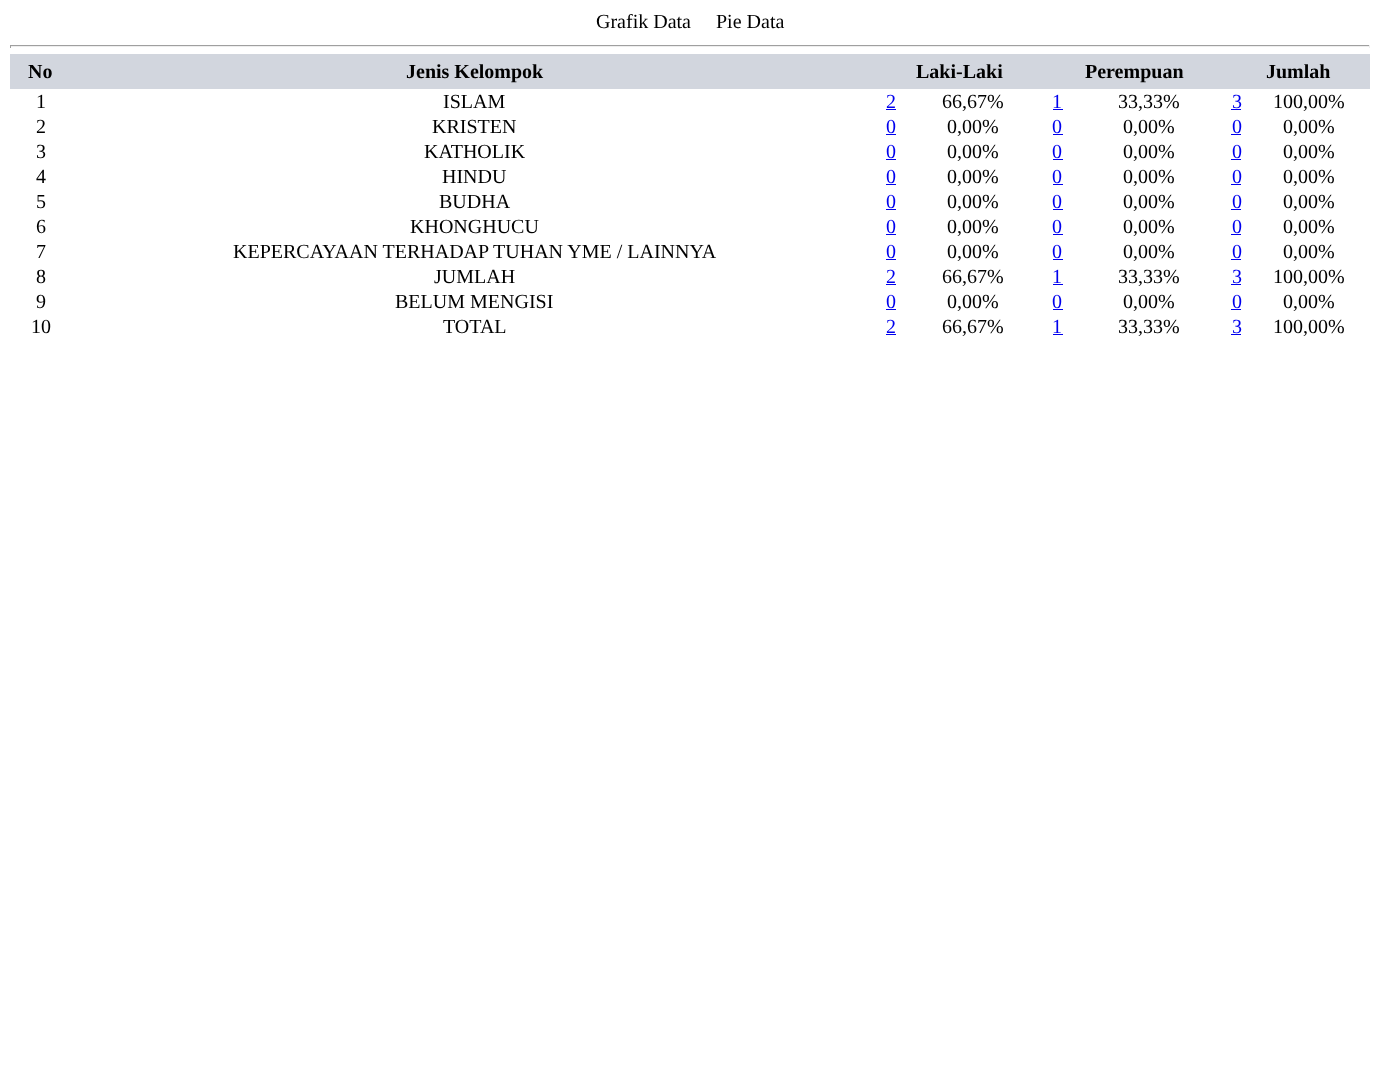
<!DOCTYPE html>
<meta charset="utf-8">
<style>body { margin: 0 } canvas { display: block }</style>
<canvas id="canvas" width="1380" height="1090"></canvas>
<script type="module">
  const canvas = document.getElementById("canvas");
  const g = canvas.getContext("2d");
  g.miterLimit = 4;
  g.fontKerning = "normal";
  function drawText(s, x, y, [font, color]) {
    g.font = font;
    g.fillStyle = color;
    g.fillText(s, x, y);
  }
  function fillBox(x, y, w, h, color) {
    g.fillStyle = color;
    g.fillRect(x, y, w, h);
  }

  const s1 = ["20px Liberation Serif", "#000000"];
  const s2 = ["bold 20px Liberation Serif", "#000000"];
  const s3 = ["20px Liberation Serif", "#0000EE"];

  fillBox(0, 0, 1380, 1090, "#FFFFFF");
  drawText("Grafik Data", 596, 28, s1);
  drawText("Pie Data", 716, 28, s1);
  fillBox(10, 45, 1360, 1, "#9F9F9F");
  fillBox(1369, 45, 1, 3, "#EEEEEE");
  fillBox(10, 46, 1360, 1, "#EEEEEE");
  fillBox(10, 45, 1, 3, "#9F9F9F");
  fillBox(10, 54, 1360, 35, "#D2D6DE");
  drawText("No", 28, 78, s2);
  drawText("Jenis Kelompok", 406, 78, s2);
  drawText("Laki-Laki", 916, 78, s2);
  drawText("Perempuan", 1085, 78, s2);
  drawText("Jumlah", 1266, 78, s2);
  drawText("1", 36, 108, s1);
  drawText("ISLAM", 443, 108, s1);
  drawText("2", 886, 108, s3);
  fillBox(886, 109, 10, 1, "#0000EE");
  drawText("66,67%", 942, 108, s1);
  drawText("1", 1052, 108, s3);
  fillBox(1053, 109, 10, 1, "#0000EE");
  drawText("33,33%", 1118, 108, s1);
  drawText("3", 1232, 108, s3);
  fillBox(1231, 109, 10, 1, "#0000EE");
  drawText("100,00%", 1273, 108, s1);
  drawText("2", 36, 133, s1);
  drawText("KRISTEN", 432, 133, s1);
  drawText("0", 886, 133, s3);
  fillBox(886, 134, 10, 1, "#0000EE");
  drawText("0,00%", 947, 133, s1);
  drawText("0", 1052, 133, s3);
  fillBox(1053, 134, 10, 1, "#0000EE");
  drawText("0,00%", 1123, 133, s1);
  drawText("0", 1232, 133, s3);
  fillBox(1231, 134, 10, 1, "#0000EE");
  drawText("0,00%", 1283, 133, s1);
  drawText("3", 36, 158, s1);
  drawText("KATHOLIK", 424, 158, s1);
  drawText("0", 886, 158, s3);
  fillBox(886, 159, 10, 1, "#0000EE");
  drawText("0,00%", 947, 158, s1);
  drawText("0", 1052, 158, s3);
  fillBox(1053, 159, 10, 1, "#0000EE");
  drawText("0,00%", 1123, 158, s1);
  drawText("0", 1232, 158, s3);
  fillBox(1231, 159, 10, 1, "#0000EE");
  drawText("0,00%", 1283, 158, s1);
  drawText("4", 36, 183, s1);
  drawText("HINDU", 442, 183, s1);
  drawText("0", 886, 183, s3);
  fillBox(886, 184, 10, 1, "#0000EE");
  drawText("0,00%", 947, 183, s1);
  drawText("0", 1052, 183, s3);
  fillBox(1053, 184, 10, 1, "#0000EE");
  drawText("0,00%", 1123, 183, s1);
  drawText("0", 1232, 183, s3);
  fillBox(1231, 184, 10, 1, "#0000EE");
  drawText("0,00%", 1283, 183, s1);
  drawText("5", 36, 208, s1);
  drawText("BUDHA", 439, 208, s1);
  drawText("0", 886, 208, s3);
  fillBox(886, 209, 10, 1, "#0000EE");
  drawText("0,00%", 947, 208, s1);
  drawText("0", 1052, 208, s3);
  fillBox(1053, 209, 10, 1, "#0000EE");
  drawText("0,00%", 1123, 208, s1);
  drawText("0", 1232, 208, s3);
  fillBox(1231, 209, 10, 1, "#0000EE");
  drawText("0,00%", 1283, 208, s1);
  drawText("6", 36, 233, s1);
  drawText("KHONGHUCU", 410, 233, s1);
  drawText("0", 886, 233, s3);
  fillBox(886, 234, 10, 1, "#0000EE");
  drawText("0,00%", 947, 233, s1);
  drawText("0", 1052, 233, s3);
  fillBox(1053, 234, 10, 1, "#0000EE");
  drawText("0,00%", 1123, 233, s1);
  drawText("0", 1232, 233, s3);
  fillBox(1231, 234, 10, 1, "#0000EE");
  drawText("0,00%", 1283, 233, s1);
  drawText("7", 36, 258, s1);
  drawText("KEPERCAYAAN TERHADAP TUHAN YME / LAINNYA", 233, 258, s1);
  drawText("0", 886, 258, s3);
  fillBox(886, 259, 10, 1, "#0000EE");
  drawText("0,00%", 947, 258, s1);
  drawText("0", 1052, 258, s3);
  fillBox(1053, 259, 10, 1, "#0000EE");
  drawText("0,00%", 1123, 258, s1);
  drawText("0", 1232, 258, s3);
  fillBox(1231, 259, 10, 1, "#0000EE");
  drawText("0,00%", 1283, 258, s1);
  drawText("8", 36, 283, s1);
  drawText("JUMLAH", 434, 283, s1);
  drawText("2", 886, 283, s3);
  fillBox(886, 284, 10, 1, "#0000EE");
  drawText("66,67%", 942, 283, s1);
  drawText("1", 1052, 283, s3);
  fillBox(1053, 284, 10, 1, "#0000EE");
  drawText("33,33%", 1118, 283, s1);
  drawText("3", 1232, 283, s3);
  fillBox(1231, 284, 10, 1, "#0000EE");
  drawText("100,00%", 1273, 283, s1);
  drawText("9", 36, 308, s1);
  drawText("BELUM MENGISI", 395, 308, s1);
  drawText("0", 886, 308, s3);
  fillBox(886, 309, 10, 1, "#0000EE");
  drawText("0,00%", 947, 308, s1);
  drawText("0", 1052, 308, s3);
  fillBox(1053, 309, 10, 1, "#0000EE");
  drawText("0,00%", 1123, 308, s1);
  drawText("0", 1232, 308, s3);
  fillBox(1231, 309, 10, 1, "#0000EE");
  drawText("0,00%", 1283, 308, s1);
  drawText("10", 31, 333, s1);
  drawText("TOTAL", 443, 333, s1);
  drawText("2", 886, 333, s3);
  fillBox(886, 334, 10, 1, "#0000EE");
  drawText("66,67%", 942, 333, s1);
  drawText("1", 1052, 333, s3);
  fillBox(1053, 334, 10, 1, "#0000EE");
  drawText("33,33%", 1118, 333, s1);
  drawText("3", 1232, 333, s3);
  fillBox(1231, 334, 10, 1, "#0000EE");
  drawText("100,00%", 1273, 333, s1);
</script>
